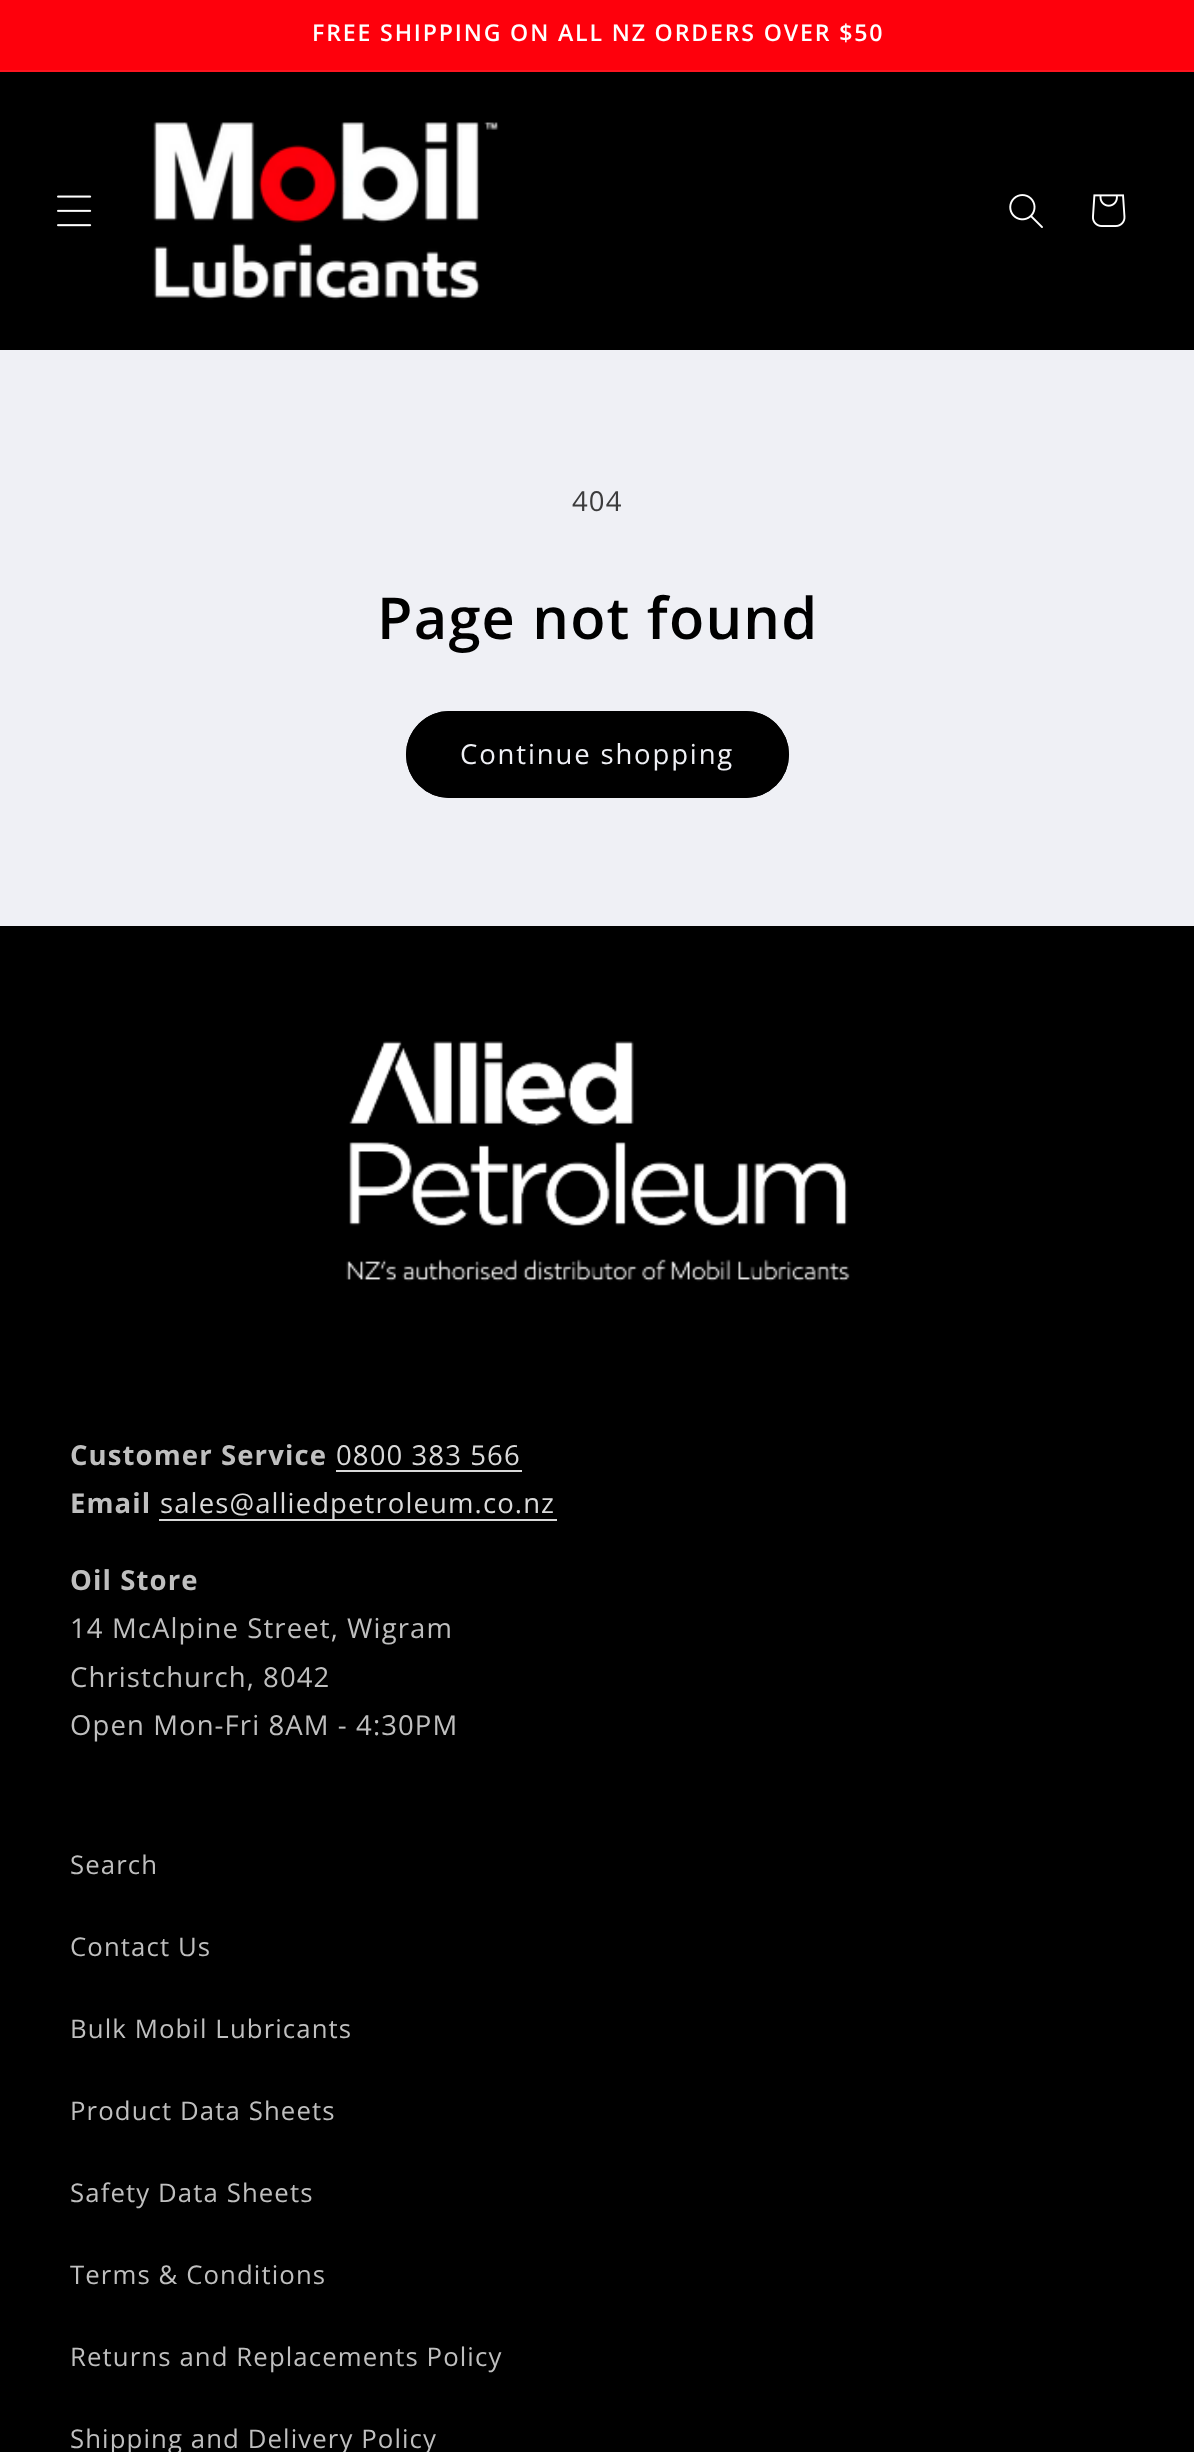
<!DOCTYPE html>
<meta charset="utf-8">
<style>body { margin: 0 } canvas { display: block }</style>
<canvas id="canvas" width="1194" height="2452"></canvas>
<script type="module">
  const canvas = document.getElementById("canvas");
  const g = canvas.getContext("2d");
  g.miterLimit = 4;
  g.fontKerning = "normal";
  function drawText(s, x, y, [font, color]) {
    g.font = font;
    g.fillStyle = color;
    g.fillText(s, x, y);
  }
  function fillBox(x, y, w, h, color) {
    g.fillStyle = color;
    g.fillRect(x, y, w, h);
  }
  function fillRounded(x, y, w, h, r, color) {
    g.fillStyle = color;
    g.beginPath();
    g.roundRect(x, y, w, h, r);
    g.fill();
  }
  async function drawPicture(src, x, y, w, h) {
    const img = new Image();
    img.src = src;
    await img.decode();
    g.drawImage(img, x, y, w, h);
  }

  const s1 = ["600 23.1px Open Sans", "#FFFFFF"];
  const s2 = ["27.5px Open Sans", "#3C3C3D"];
  const s3 = ["600 57.75px Open Sans", "#000000"];
  const s4 = ["27.5px Open Sans", "#EFF0F5"];
  const s5 = ["bold 27.5px Open Sans", "#BFBFBF"];
  const s6 = ["27.5px Open Sans", "#D9D9D9"];
  const s7 = ["27.5px Open Sans", "#BFBFBF"];
  const s8 = ["25.75px Open Sans", "#BFBFBF"];

  fillBox(0, 0, 1194, 2452, "#EFF0F5");
  fillBox(0, 0, 1194, 70, "#FE000C");
  fillBox(0, 70, 1194, 2, "#FE141F");
  g.letterSpacing = "1.85px";
  drawText("FREE SHIPPING ON ALL NZ ORDERS OVER $50", 312, 41, s1);
  fillBox(0, 72, 1194, 278, "#000000");
  await drawPicture("pic1.png", 57, 195, 35, 32);
  await drawPicture("pic2.png", 153, 122, 346, 178);
  await drawPicture("pic3.png", 1009, 194, 34, 34);
  await drawPicture("pic4.png", 1092, 194, 34, 33);
  g.letterSpacing = "1.1px";
  drawText("404", 572, 511, s2);
  g.letterSpacing = "1.2px";
  drawText("Page not found", 377, 639, s3);
  fillRounded(406, 711, 383, 87, 43.5, "#000000");
  g.beginPath();
  g.roundRect(407, 712, 381, 85, 42.5);
  g.strokeStyle = "#000000";
  g.lineWidth = 2;
  g.stroke();
  g.letterSpacing = "1.85px";
  drawText("Continue shopping", 460, 764, s4);
  fillBox(0, 926, 1194, 1526, "#000000");
  await drawPicture("pic5.png", 346, 1041, 504, 241);
  g.letterSpacing = "1.1px";
  drawText("Customer Service", 70, 1465, s5);
  drawText("0800 383 566", 336, 1465, s6);
  fillBox(336, 1470, 186, 2, "#D9D9D9");
  drawText("Email", 70, 1513, s5);
  fillBox(159, 1519, 398, 2, "#D9D9D9");
  drawText("sales@alliedpetroleum.co.nz", 160, 1513, s6);
  drawText("Oil Store", 70, 1590, s5);
  drawText("14 McAlpine Street, Wigram", 70, 1638, s7);
  drawText("Christchurch, 8042", 70, 1687, s7);
  drawText("Open Mon-Fri 8AM - 4:30PM", 70, 1735, s7);
  drawText("Search", 70, 1874, s8);
  drawText("Contact Us", 70, 1956, s8);
  drawText("Bulk Mobil Lubricants", 70, 2038, s8);
  drawText("Product Data Sheets", 70, 2120, s8);
  drawText("Safety Data Sheets", 70, 2202, s8);
  drawText("Terms & Conditions", 70, 2284, s8);
  drawText("Returns and Replacements Policy", 70, 2366, s8);
  drawText("Shipping and Delivery Policy", 70, 2448, s8);
</script>
